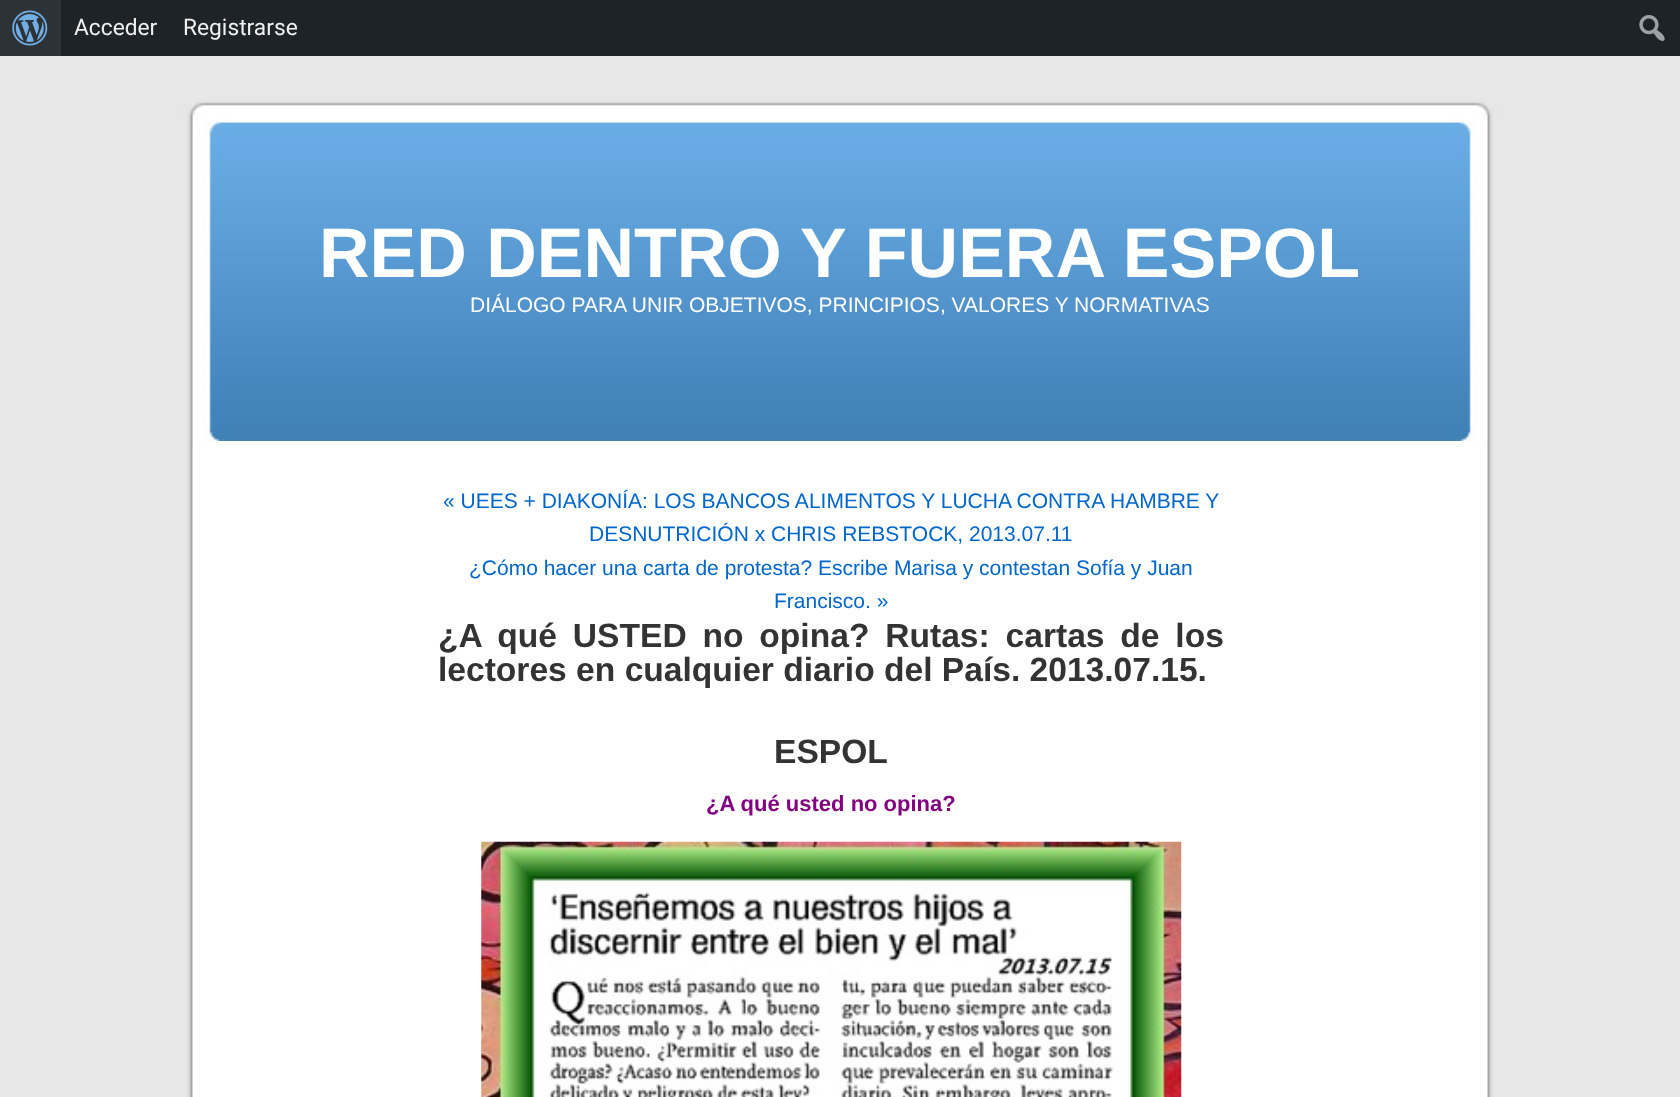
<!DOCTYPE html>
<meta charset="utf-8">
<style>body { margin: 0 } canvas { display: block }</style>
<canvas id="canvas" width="1680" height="1097"></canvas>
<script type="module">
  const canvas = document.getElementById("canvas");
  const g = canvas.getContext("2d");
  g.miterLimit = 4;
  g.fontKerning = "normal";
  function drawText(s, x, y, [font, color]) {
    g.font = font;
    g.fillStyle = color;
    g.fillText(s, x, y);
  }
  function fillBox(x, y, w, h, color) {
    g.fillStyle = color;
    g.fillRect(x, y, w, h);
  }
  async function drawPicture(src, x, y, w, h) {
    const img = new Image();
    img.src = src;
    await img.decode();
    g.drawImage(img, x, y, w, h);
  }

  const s1 = ["22.75px Roboto", "#F0F0F1"];
  const s2 = ["bold 70px Liberation Sans", "#FFFFFF"];
  const s3 = ["21px Liberation Sans", "#FFFFFF"];
  const s4 = ["21px Liberation Sans", "#0066CC"];
  const s5 = ["bold 33.6px Liberation Sans", "#333333"];
  const s6 = ["bold 22px Liberation Sans", "#800080"];

  fillBox(0, 0, 1680, 1097, "#E7E7E7");
  fillBox(61, 0, 1619, 56, "#1D2327");
  fillBox(0, 0, 61, 56, "#2C3338");
  await drawPicture("pic1.png", 12, 10, 36, 36);
  drawText("Acceder", 74, 35, s1);
  drawText("Registrarse", 183, 35, s1);
  await drawPicture("pic2.png", 1639, 15, 26, 26);
  await drawPicture("pic3.png", 187, 441, 1306, 656);
  await drawPicture("pic4.png", 177, 91, 1326, 350);
  drawText("RED DENTRO Y FUERA ESPOL", 319, 277, s2);
  drawText("DIÁLOGO PARA UNIR OBJETIVOS, PRINCIPIOS, VALORES Y NORMATIVAS", 470, 312, s3);
  drawText("« UEES + DIAKONÍA: LOS BANCOS ALIMENTOS Y LUCHA CONTRA HAMBRE Y", 443, 508, s4);
  drawText("DESNUTRICIÓN x CHRIS REBSTOCK, 2013.07.11", 589, 541, s4);
  drawText("¿Cómo hacer una carta de protesta? Escribe Marisa y contestan Sofía y Juan", 469, 575, s4);
  drawText("Francisco. »", 774, 608, s4);
  g.wordSpacing = "6.5px";
  drawText("¿A qué USTED no opina? Rutas: cartas de los", 438, 647, s5);
  g.wordSpacing = "0px";
  drawText("lectores en cualquier diario del País. 2013.07.15.", 438, 681, s5);
  drawText("ESPOL", 774, 763, s5);
  drawText("¿A qué usted no opina?", 706, 811, s6);
  await drawPicture("pic5.png", 481, 841, 701, 256);
</script>
